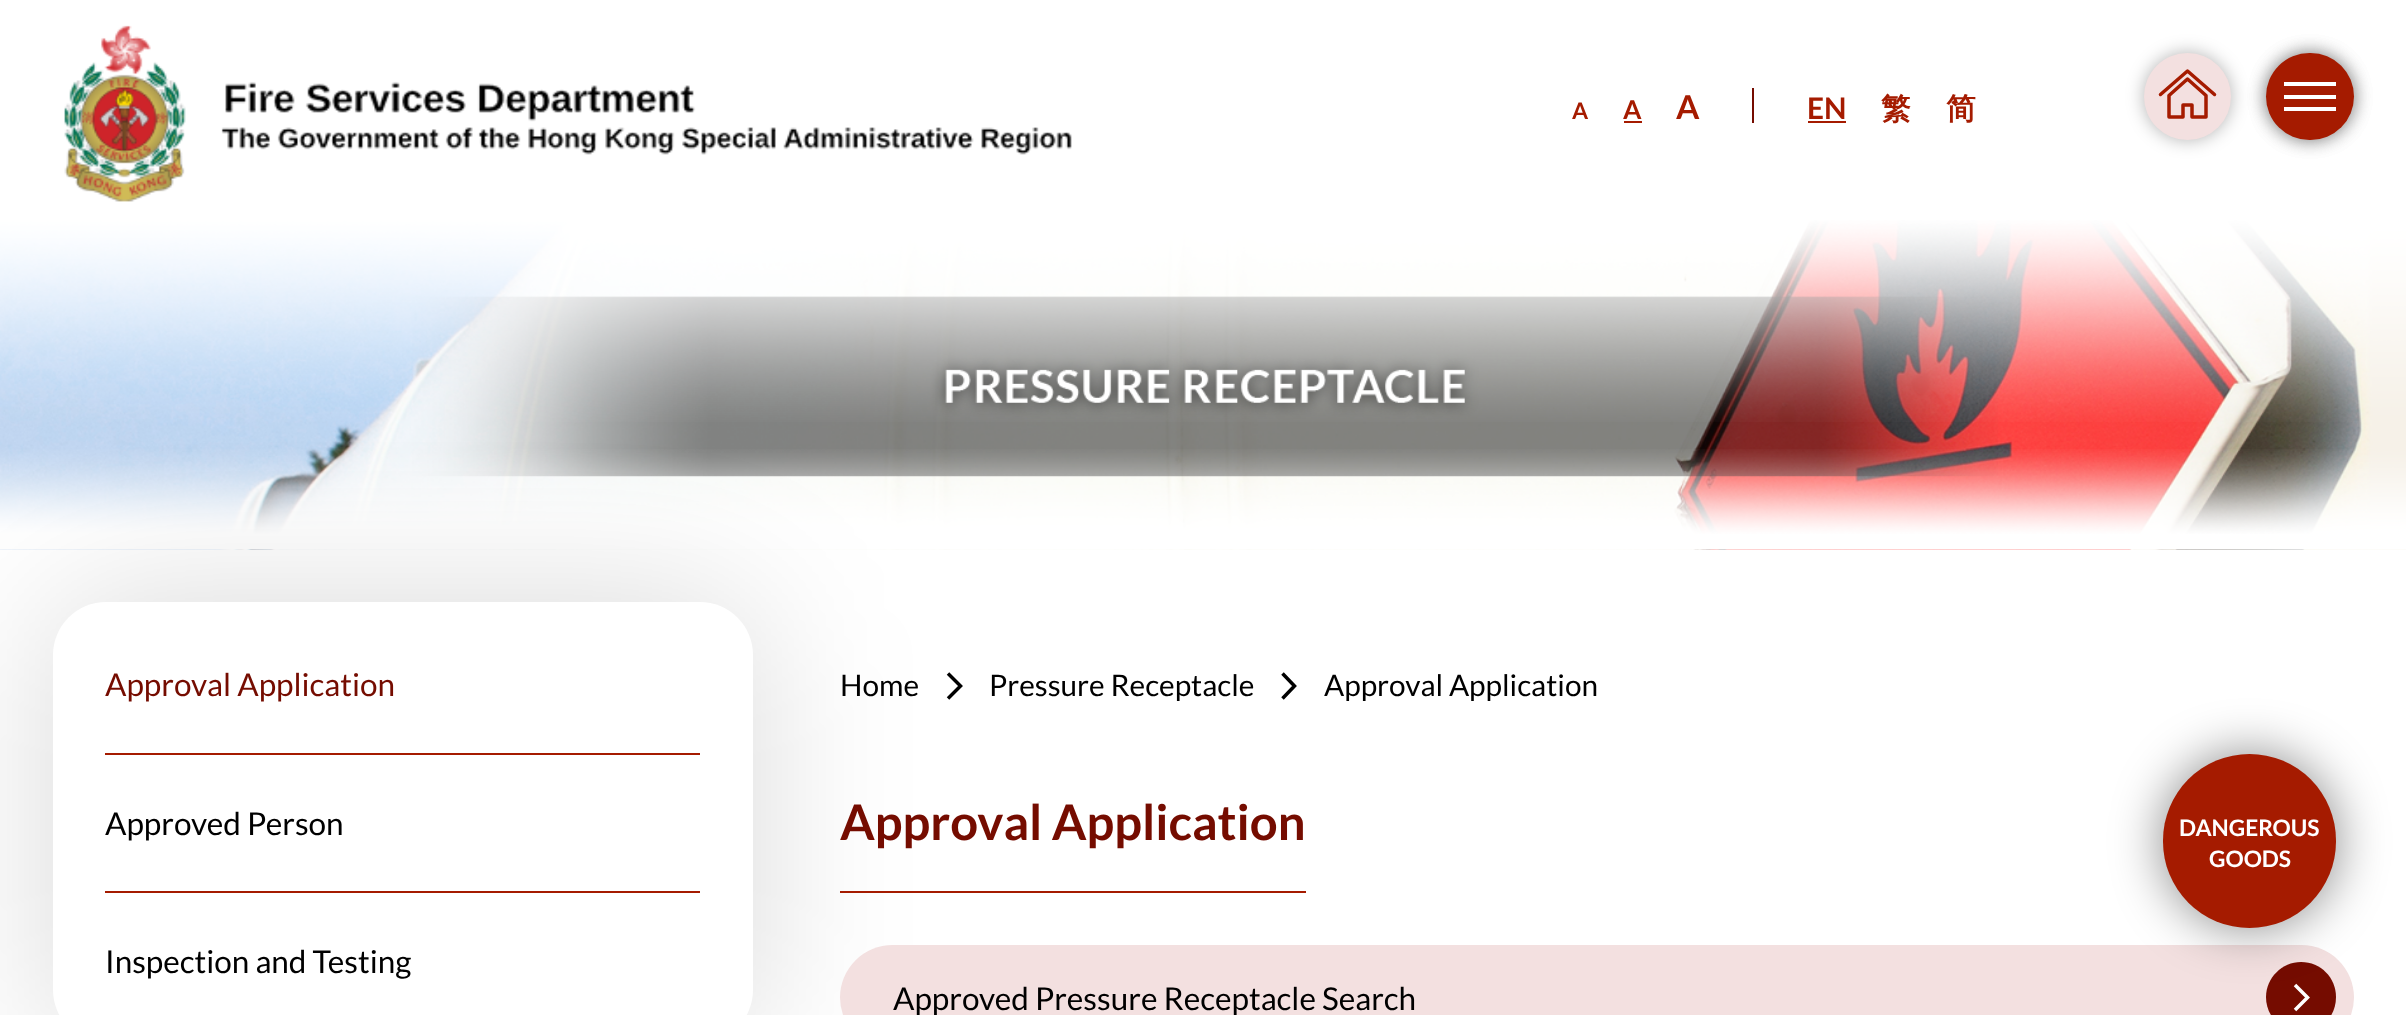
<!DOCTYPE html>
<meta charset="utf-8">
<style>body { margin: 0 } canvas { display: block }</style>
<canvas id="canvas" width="2406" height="1015"></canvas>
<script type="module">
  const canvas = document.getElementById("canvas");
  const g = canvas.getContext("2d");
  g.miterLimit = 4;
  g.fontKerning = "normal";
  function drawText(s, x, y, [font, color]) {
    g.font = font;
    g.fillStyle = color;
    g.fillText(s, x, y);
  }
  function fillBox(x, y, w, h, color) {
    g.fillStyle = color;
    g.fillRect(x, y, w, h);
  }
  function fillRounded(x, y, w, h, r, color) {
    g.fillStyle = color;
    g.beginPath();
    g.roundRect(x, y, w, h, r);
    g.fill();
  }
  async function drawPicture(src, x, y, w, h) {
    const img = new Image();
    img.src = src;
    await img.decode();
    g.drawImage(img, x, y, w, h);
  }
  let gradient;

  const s1 = ["bold 22.75px Lato", "#A51B00"];
  const s2 = ["bold 26px Lato", "#A51B00"];
  const s3 = ["bold 33px Lato", "#A51B00"];
  const s4 = ["bold 29.75px Lato", "#A51B00"];
  const s5 = ["bold 29.75px WenQuanYi Zen Hei", "#A51B00"];
  const s6 = ["31.5px Lato", "#750C00"];
  const s7 = ["31.5px Lato", "#000000"];
  const s8 = ["29.75px Lato", "#000000"];
  const s9 = ["bold 49px Lato", "#750C00"];
  const s10 = ["bold 22.75px Lato", "#FFFFFF"];

  fillBox(0, 0, 2406, 1015, "#FFFFFF");
  await drawPicture("pic4.png", 0, 220, 2406, 330);
  await drawPicture("pic5.png", 0, 449, 2406, 101);
  g.fillStyle = "rgba(0, 0, 0, 0.15)";
  g.filter = "blur(79px)";
  g.beginPath();
  g.roundRect(53, 602, 700, 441, 53);
  g.fill();
  g.filter = "none";
  await drawPicture("pic3.png", 0, 158, 2406, 264);
  await drawPicture("pic1.png", 64, 25, 1008, 177);
  g.fillStyle = "rgba(0, 0, 0, 0.3)";
  g.filter = "blur(9px)";
  g.beginPath();
  g.roundRect(2144, 53, 87, 87, 43.5);
  g.fill();
  g.filter = "none";
  g.fillStyle = "#F3E0E0";
  g.beginPath();
  g.arc(2187.5, 96.5, 43.5, 0, Math.PI * 2);
  g.fill();
  g.beginPath();
  g.moveTo(2192, 105);
  g.lineTo(2192, 117);
  g.lineTo(2206, 117);
  g.lineTo(2206, 95.5);
  g.lineTo(2187.5, 79);
  g.lineTo(2169, 95.5);
  g.lineTo(2169, 117);
  g.lineTo(2183, 117);
  g.lineTo(2183, 105);
  g.closePath();
  g.moveTo(2214.5, 94.5);
  g.lineTo(2187.5, 71);
  g.lineTo(2160.5, 94.5);
  g.strokeStyle = "#A51B00";
  g.lineWidth = 3.5;
  g.lineCap = "round";
  g.lineJoin = "round";
  g.stroke();
  g.fillStyle = "rgba(0, 0, 0, 0.3)";
  g.filter = "blur(9px)";
  g.beginPath();
  g.roundRect(2266, 53, 88, 87, 43.5);
  g.fill();
  g.filter = "none";
  await drawPicture("pic2.png", 2343, 118, 5, 7);
  fillBox(1752, 88, 2, 35, "#750C00");
  drawText("A", 1572, 119, s1);
  drawText("A", 1623, 119, s2);
  fillBox(1624, 121, 18, 2, "#A51B00");
  drawText("A", 1676, 119, s3);
  drawText("EN", 1807, 119, s4);
  fillBox(1808, 121, 38, 2, "#A51B00");
  drawText("繁", 1881, 119, s5);
  drawText("简", 1946, 119, s5);
  g.fillStyle = "rgba(0, 0, 0, 0.3)";
  g.filter = "blur(9px)";
  g.beginPath();
  g.roundRect(2266, 53, 88, 87, 43.5);
  g.fill();
  g.filter = "none";
  fillRounded(2266, 53, 88, 87, 43.5, "#A51B00");
  fillBox(2284, 82, 52, 4, "#FFFFFF");
  fillBox(2284, 95, 52, 4, "#FFFFFF");
  fillBox(2284, 107, 52, 4, "#FFFFFF");
  fillRounded(53, 602, 700, 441, 53, "#FFFFFF");
  fillBox(105, 753, 595, 2, "#A51B00");
  drawText("Approval Application", 105, 696, s6);
  fillBox(105, 891, 595, 2, "#A51B00");
  drawText("Approved Person", 105, 835, s7);
  drawText("Inspection and Testing", 105, 973, s7);
  drawText("Home", 840, 696, s8);
  g.beginPath();
  g.moveTo(948, 673.5);
  g.lineTo(960.5, 686);
  g.lineTo(948, 698.5);
  g.strokeStyle = "#000000";
  g.lineCap = "butt";
  g.lineJoin = "miter";
  g.stroke();
  drawText("Pressure Receptacle", 989, 696, s8);
  g.beginPath();
  g.moveTo(1282.5, 673.5);
  g.lineTo(1294.5, 686);
  g.lineTo(1282.5, 698.5);
  g.stroke();
  drawText("Approval Application", 1324, 696, s8);
  drawText("Approval Application", 840, 840, s9);
  fillBox(840, 891, 466, 2, "#A51B00");
  fillRounded(840, 945, 1514, 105, 52.5, "#F3E0E0");
  drawText("Approved Pressure Receptacle Search", 893, 1010, s7);
  g.fillStyle = "#750C00";
  g.beginPath();
  g.moveTo(2301, 962);
  g.bezierCurveTo(2282, 962, 2266, 978, 2266, 997);
  g.bezierCurveTo(2266, 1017, 2282, 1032, 2301, 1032);
  g.bezierCurveTo(2321, 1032, 2336, 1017, 2336, 997);
  g.bezierCurveTo(2336, 978, 2321, 962, 2301, 962);
  g.closePath();
  g.fill();
  g.beginPath();
  g.moveTo(2295, 985);
  g.lineTo(2307.5, 997.5);
  g.lineTo(2295, 1010);
  g.strokeStyle = "#FFFFFF";
  g.stroke();
  g.fillStyle = "rgba(0, 0, 0, 0.47)";
  g.filter = "blur(25.5px)";
  g.beginPath();
  g.roundRect(2163, 754, 173, 174, 86.5);
  g.fill();
  g.filter = "none";
  gradient = g.createLinearGradient(2250, 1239, 2250, 720);
  gradient.addColorStop(0, "#F3E0E0");
  gradient.addColorStop(0.4, "#F3E0E0");
  gradient.addColorStop(0.6, "#A51B00");
  gradient.addColorStop(1, "#A51B00");
  g.fillStyle = gradient;
  g.beginPath();
  g.roundRect(2163, 754, 173, 174, 86.5);
  g.fill();
  drawText("DANGEROUS", 2179, 836, s10);
  drawText("GOODS", 2209, 867, s10);
</script>
